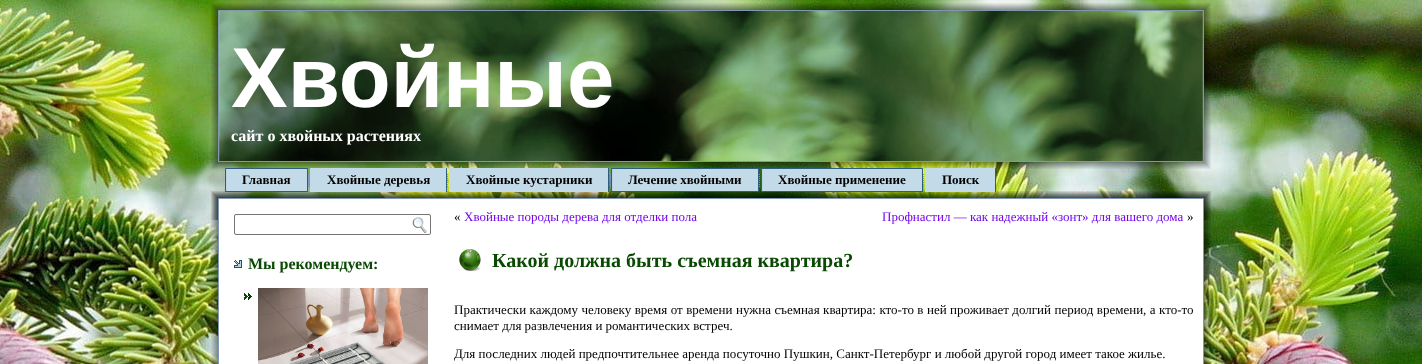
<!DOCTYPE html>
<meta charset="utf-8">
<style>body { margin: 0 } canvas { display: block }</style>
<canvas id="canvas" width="1422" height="364"></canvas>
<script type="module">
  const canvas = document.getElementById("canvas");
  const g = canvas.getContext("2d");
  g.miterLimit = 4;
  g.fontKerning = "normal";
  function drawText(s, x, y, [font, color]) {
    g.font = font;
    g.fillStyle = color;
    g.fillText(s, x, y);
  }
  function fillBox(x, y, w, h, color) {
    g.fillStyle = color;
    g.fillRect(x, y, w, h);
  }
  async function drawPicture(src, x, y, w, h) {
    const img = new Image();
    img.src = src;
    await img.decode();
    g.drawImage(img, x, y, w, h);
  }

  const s1 = ["bold 85px Liberation Sans", "#FFFFFF"];
  const s2 = ["bold 16px Liberation Serif", "#FFFFFF"];
  const s3 = ["bold 13px Liberation Serif", "#000000"];
  const s4 = ["bold 16px Liberation Serif", "#0A4903"];
  const s5 = ["13px Liberation Serif", "#000000"];
  const s6 = ["13px Liberation Serif", "#7405EB"];
  const s7 = ["bold 20px Liberation Serif", "#0A4903"];

  fillBox(0, 0, 1422, 364, "#FFFFFF");
  await drawPicture("pic1.png", 0, 0, 1422, 364);
  await drawPicture("pic2.png", 331, 0, 761, 10);
  await drawPicture("pic3.png", 211, 3, 1000, 166);
  await drawPicture("pic4.png", 226, 11, 970, 150);
  drawText("Хвойные", 231, 107, s1);
  drawText("сайт о хвойных растениях", 231, 141, s2);
  await drawPicture("pic19.png", 211, 191, 971, 29);
  await drawPicture("pic20.png", 211, 191, 971, 29);
  await drawPicture("pic5.png", 225, 168, 82, 24);
  await drawPicture("pic6.png", 307, 168, 1, 24);
  drawText("Главная", 242, 184, s3);
  await drawPicture("pic7.png", 308, 174, 1, 13);
  fillBox(310, 168, 136, 24, "#C3DBE9");
  await drawPicture("pic8.png", 446, 168, 1, 24);
  drawText("Хвойные деревья", 327, 184, s3);
  await drawPicture("pic9.png", 447, 174, 1, 13);
  fillBox(449, 168, 159, 24, "#C3DBE9");
  await drawPicture("pic10.png", 608, 168, 1, 24);
  drawText("Хвойные кустарники", 466, 184, s3);
  await drawPicture("pic11.png", 610, 174, 1, 13);
  await drawPicture("pic12.png", 611, 168, 147, 24);
  await drawPicture("pic13.png", 758, 168, 1, 24);
  drawText("Лечение хвойными", 628, 184, s3);
  await drawPicture("pic14.png", 759, 174, 1, 13);
  await drawPicture("pic15.png", 761, 168, 161, 24);
  await drawPicture("pic16.png", 922, 168, 1, 24);
  drawText("Хвойные применение", 778, 184, s3);
  await drawPicture("pic17.png", 923, 174, 1, 13);
  fillBox(925, 168, 70, 24, "#C3DBE9");
  await drawPicture("pic18.png", 995, 168, 1, 24);
  drawText("Поиск", 942, 184, s3);
  await drawPicture("pic21.png", 1182, 191, 29, 29);
  await drawPicture("pic22.png", 1182, 191, 29, 29);
  await drawPicture("pic28.png", 211, 220, 971, 144);
  g.beginPath();
  g.roundRect(234.5, 214.5, 196, 20, 1.5);
  g.strokeStyle = "#767676";
  g.stroke();
  await drawPicture("pic23.png", 412, 217, 15, 16);
  await drawPicture("pic24.png", 234, 260, 8, 8);
  drawText("Мы рекомендуем:", 248, 269, s4);
  await drawPicture("pic25.png", 244, 293, 8, 7);
  await drawPicture("pic26.png", 258, 288, 170, 76);
  drawText("«", 454, 221, s5);
  drawText("Хвойные породы дерева для отделки пола", 464, 221, s6);
  await drawPicture("pic29.png", 1182, 220, 29, 144);
  drawText("Профнастил — как надежный «зонт» для вашего дома", 882, 221, s6);
  drawText("»", 1187, 221, s5);
  await drawPicture("pic27.png", 459, 249, 22, 23);
  drawText("Какой должна быть съемная квартира?", 492, 267, s7);
  g.wordSpacing = "0.2px";
  drawText("Практически каждому человеку время от времени нужна съемная квартира: кто-то в ней проживает долгий период времени, а кто-то", 454, 314, s5);
  g.wordSpacing = "0px";
  drawText("снимает для развлечения и романтических встреч.", 454, 330, s5);
  drawText("Для последних людей предпочтительнее аренда посуточно Пушкин, Санкт-Петербург и любой другой город имеет такое жилье.", 454, 358, s5);
</script>
